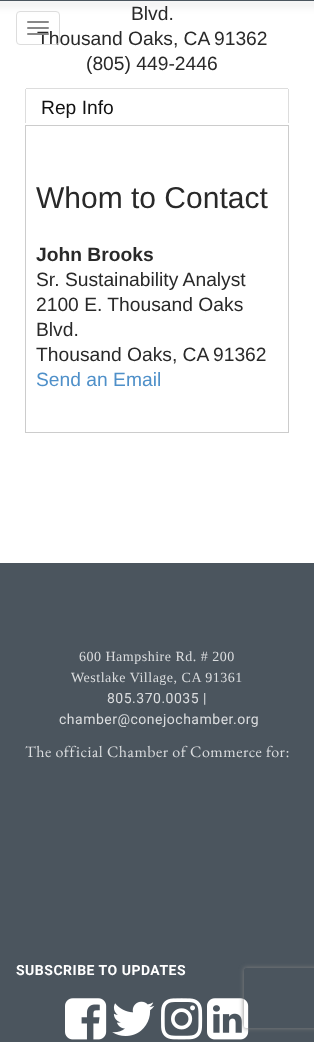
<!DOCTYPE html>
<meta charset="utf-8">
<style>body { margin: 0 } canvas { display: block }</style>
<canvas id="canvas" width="314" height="1042"></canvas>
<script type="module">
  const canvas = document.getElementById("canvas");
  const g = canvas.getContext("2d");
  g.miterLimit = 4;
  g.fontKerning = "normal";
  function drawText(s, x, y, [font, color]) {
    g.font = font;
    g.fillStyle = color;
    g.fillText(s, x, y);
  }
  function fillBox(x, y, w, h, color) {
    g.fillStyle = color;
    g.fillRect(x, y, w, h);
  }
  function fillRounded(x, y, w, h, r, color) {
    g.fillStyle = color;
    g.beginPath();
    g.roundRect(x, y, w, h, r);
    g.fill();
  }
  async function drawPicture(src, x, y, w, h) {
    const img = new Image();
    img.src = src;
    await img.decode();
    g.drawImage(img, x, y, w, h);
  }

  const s1 = ["19.25px Liberation Sans", "#292929"];
  const s2 = ["19.25px Liberation Sans", "#111111"];
  const s3 = ["30px Liberation Sans", "#292929"];
  const s4 = ["bold 19.25px Liberation Sans", "#292929"];
  const s5 = ["19.25px Liberation Sans", "#4F90C9"];
  const s6 = ["14px Liberation Serif", "#DBDDDF"];
  const s7 = ["14px Roboto", "#DBDDDF"];
  const s8 = ["16px EB Garamond", "#DBDDDF"];
  const s9 = ["bold 14px Roboto", "#FFFFFF"];

  fillBox(0, 0, 314, 1042, "#FFFFFF");
  g.fillStyle = "rgba(0, 0, 0, 0.46)";
  g.filter = "blur(4px)";
  g.beginPath();
  g.rect(-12, 3, 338, 1);
  g.fill();
  g.filter = "none";
  fillBox(0, 0, 314, 1, "#4B555E");
  drawText("Thousand Oaks, CA", 37, 45, s1);
  g.beginPath();
  g.roundRect(16.5, 11.5, 43, 33, 3.5);
  g.strokeStyle = "#DDDDDD";
  g.stroke();
  fillRounded(27, 21, 22, 2, 1, "#888888");
  fillRounded(27, 27, 22, 2, 1, "#888888");
  fillRounded(27, 33, 22, 2, 1, "#888888");
  drawText("Blvd.", 131, 20, s1);
  drawText("91362", 214, 45, s1);
  drawText("(805) 449-2446", 86, 70, s1);
  fillBox(26, 88, 262, 1, "#DDDDDD");
  fillBox(288, 89, 1, 34, "#DDDDDD");
  fillBox(25, 89, 1, 34, "#DDDDDD");
  drawText("Rep Info", 41, 114, s2);
  g.strokeStyle = "#CCCCCC";
  g.strokeRect(25.5, 125.5, 263, 307);
  drawText("Whom to Contact", 36, 208, s3);
  drawText("John Brooks", 36, 261, s4);
  drawText("Sr. Sustainability Analyst", 36, 286, s1);
  drawText("2100 E. Thousand Oaks", 36, 311, s1);
  drawText("Blvd.", 36, 336, s1);
  drawText("Thousand Oaks, CA", 36, 361, s1);
  drawText("91362", 213, 361, s1);
  drawText("Send an Email", 36, 386, s5);
  fillBox(0, 563, 314, 479, "#4B555E");
  g.letterSpacing = "0.5px";
  drawText("600 Hampshire Rd. # 200", 79, 661, s6);
  drawText("Westlake Village, CA 91361", 71, 682, s6);
  drawText("805.370.0035 |", 107, 703, s7);
  drawText("chamber@conejochamber.org", 59, 724, s7);
  drawText("The official Chamber of Commerce for:", 25, 757, s8);
  drawText("SUBSCRIBE TO UPDATES", 16, 975, s9);
  await drawPicture("pic1.png", 65, 998, 42, 42);
  await drawPicture("pic2.png", 112, 1001, 43, 35);
  await drawPicture("pic3.png", 161, 998, 42, 42);
  await drawPicture("pic4.png", 207, 998, 42, 42);
  g.save();
  g.beginPath();
  g.moveTo(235, 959);
  g.lineTo(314, 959);
  g.lineTo(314, 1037);
  g.lineTo(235, 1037);
  g.closePath();
  g.moveTo(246, 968);
  g.lineTo(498, 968);
  g.bezierCurveTo(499, 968, 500, 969, 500, 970);
  g.lineTo(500, 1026);
  g.bezierCurveTo(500, 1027, 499, 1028, 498, 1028);
  g.lineTo(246, 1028);
  g.bezierCurveTo(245, 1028, 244, 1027, 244, 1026);
  g.lineTo(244, 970);
  g.bezierCurveTo(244, 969, 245, 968, 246, 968);
  g.closePath();
  g.clip("evenodd");
  g.fillStyle = "#808080";
  g.filter = "blur(2.5px)";
  g.beginPath();
  g.roundRect(244, 968, 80, 60, 2);
  g.fill();
  g.filter = "none";
  g.restore();
</script>
